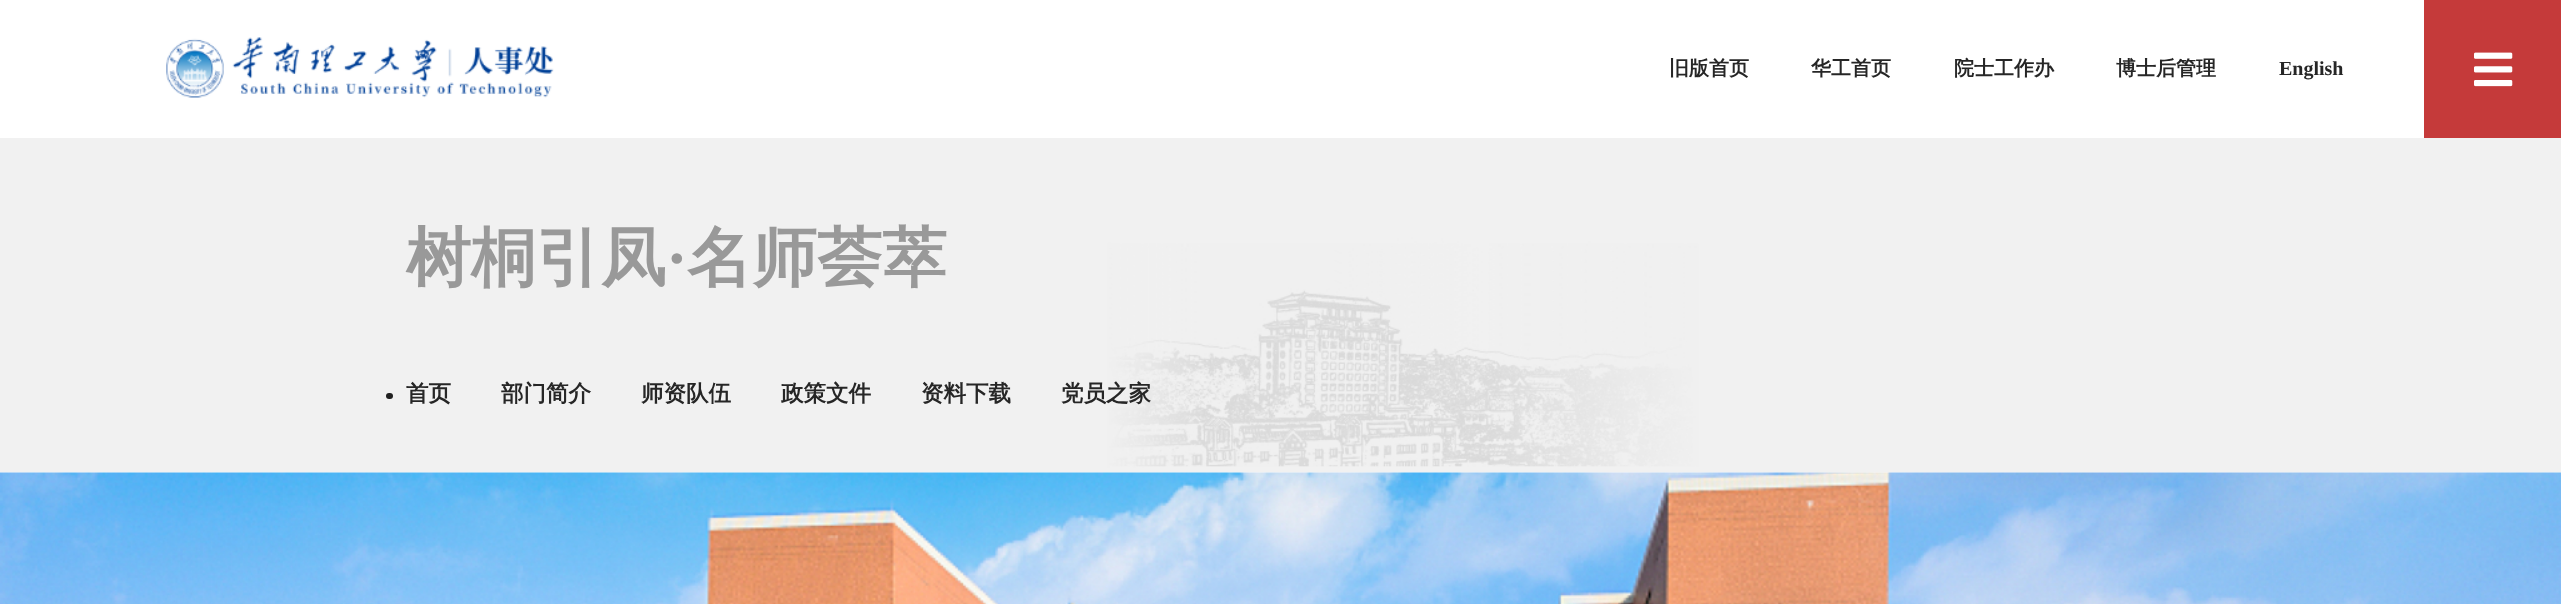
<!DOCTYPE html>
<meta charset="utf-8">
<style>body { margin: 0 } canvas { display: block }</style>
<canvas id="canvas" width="2561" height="604"></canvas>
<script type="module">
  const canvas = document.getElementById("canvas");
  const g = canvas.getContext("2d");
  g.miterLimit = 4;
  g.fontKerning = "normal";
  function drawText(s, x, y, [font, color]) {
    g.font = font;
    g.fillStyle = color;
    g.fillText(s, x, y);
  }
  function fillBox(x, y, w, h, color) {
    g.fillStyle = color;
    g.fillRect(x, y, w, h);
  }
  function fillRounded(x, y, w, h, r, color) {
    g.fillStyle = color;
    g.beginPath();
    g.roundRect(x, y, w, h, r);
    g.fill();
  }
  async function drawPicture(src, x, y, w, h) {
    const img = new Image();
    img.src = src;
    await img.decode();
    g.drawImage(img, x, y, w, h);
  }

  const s1 = ["bold 20px WenQuanYi Zen Hei", "#262626"];
  const s2 = ["bold 20px Liberation Serif", "#262626"];
  const s3 = ["bold 65px WenQuanYi Zen Hei", "#999999"];
  const s4 = ["bold 65px Liberation Serif", "#999999"];
  const s5 = ["bold 22.5px WenQuanYi Zen Hei", "#262626"];

  fillBox(0, 0, 2561, 604, "#FFFFFF");
  await drawPicture("pic1.png", 166, 37, 388, 61);
  drawText("旧版首页", 1669, 75, s1);
  drawText("华工首页", 1811, 75, s1);
  drawText("院士工作办", 1954, 75, s1);
  drawText("博士后管理", 2116, 75, s1);
  drawText("English", 2279, 75, s2);
  fillBox(2424, 0, 137, 138, "#C53A3A");
  await drawPicture("pic2.png", 2474, 52, 39, 35);
  await drawPicture("pic3.png", 0, 138, 2561, 335);
  drawText("树桐引凤", 406, 280, s3);
  drawText("·", 666, 280, s4);
  drawText("名师荟萃", 687, 280, s3);
  fillRounded(386, 393, 7, 6, 3, "#202020");
  drawText("首页", 406, 401, s5);
  drawText("部门简介", 501, 401, s5);
  drawText("师资队伍", 641, 401, s5);
  drawText("政策文件", 781, 401, s5);
  drawText("资料下载", 921, 401, s5);
  drawText("党员之家", 1061, 401, s5);
  await drawPicture("pic4.png", 0, 472, 2561, 132);
</script>
